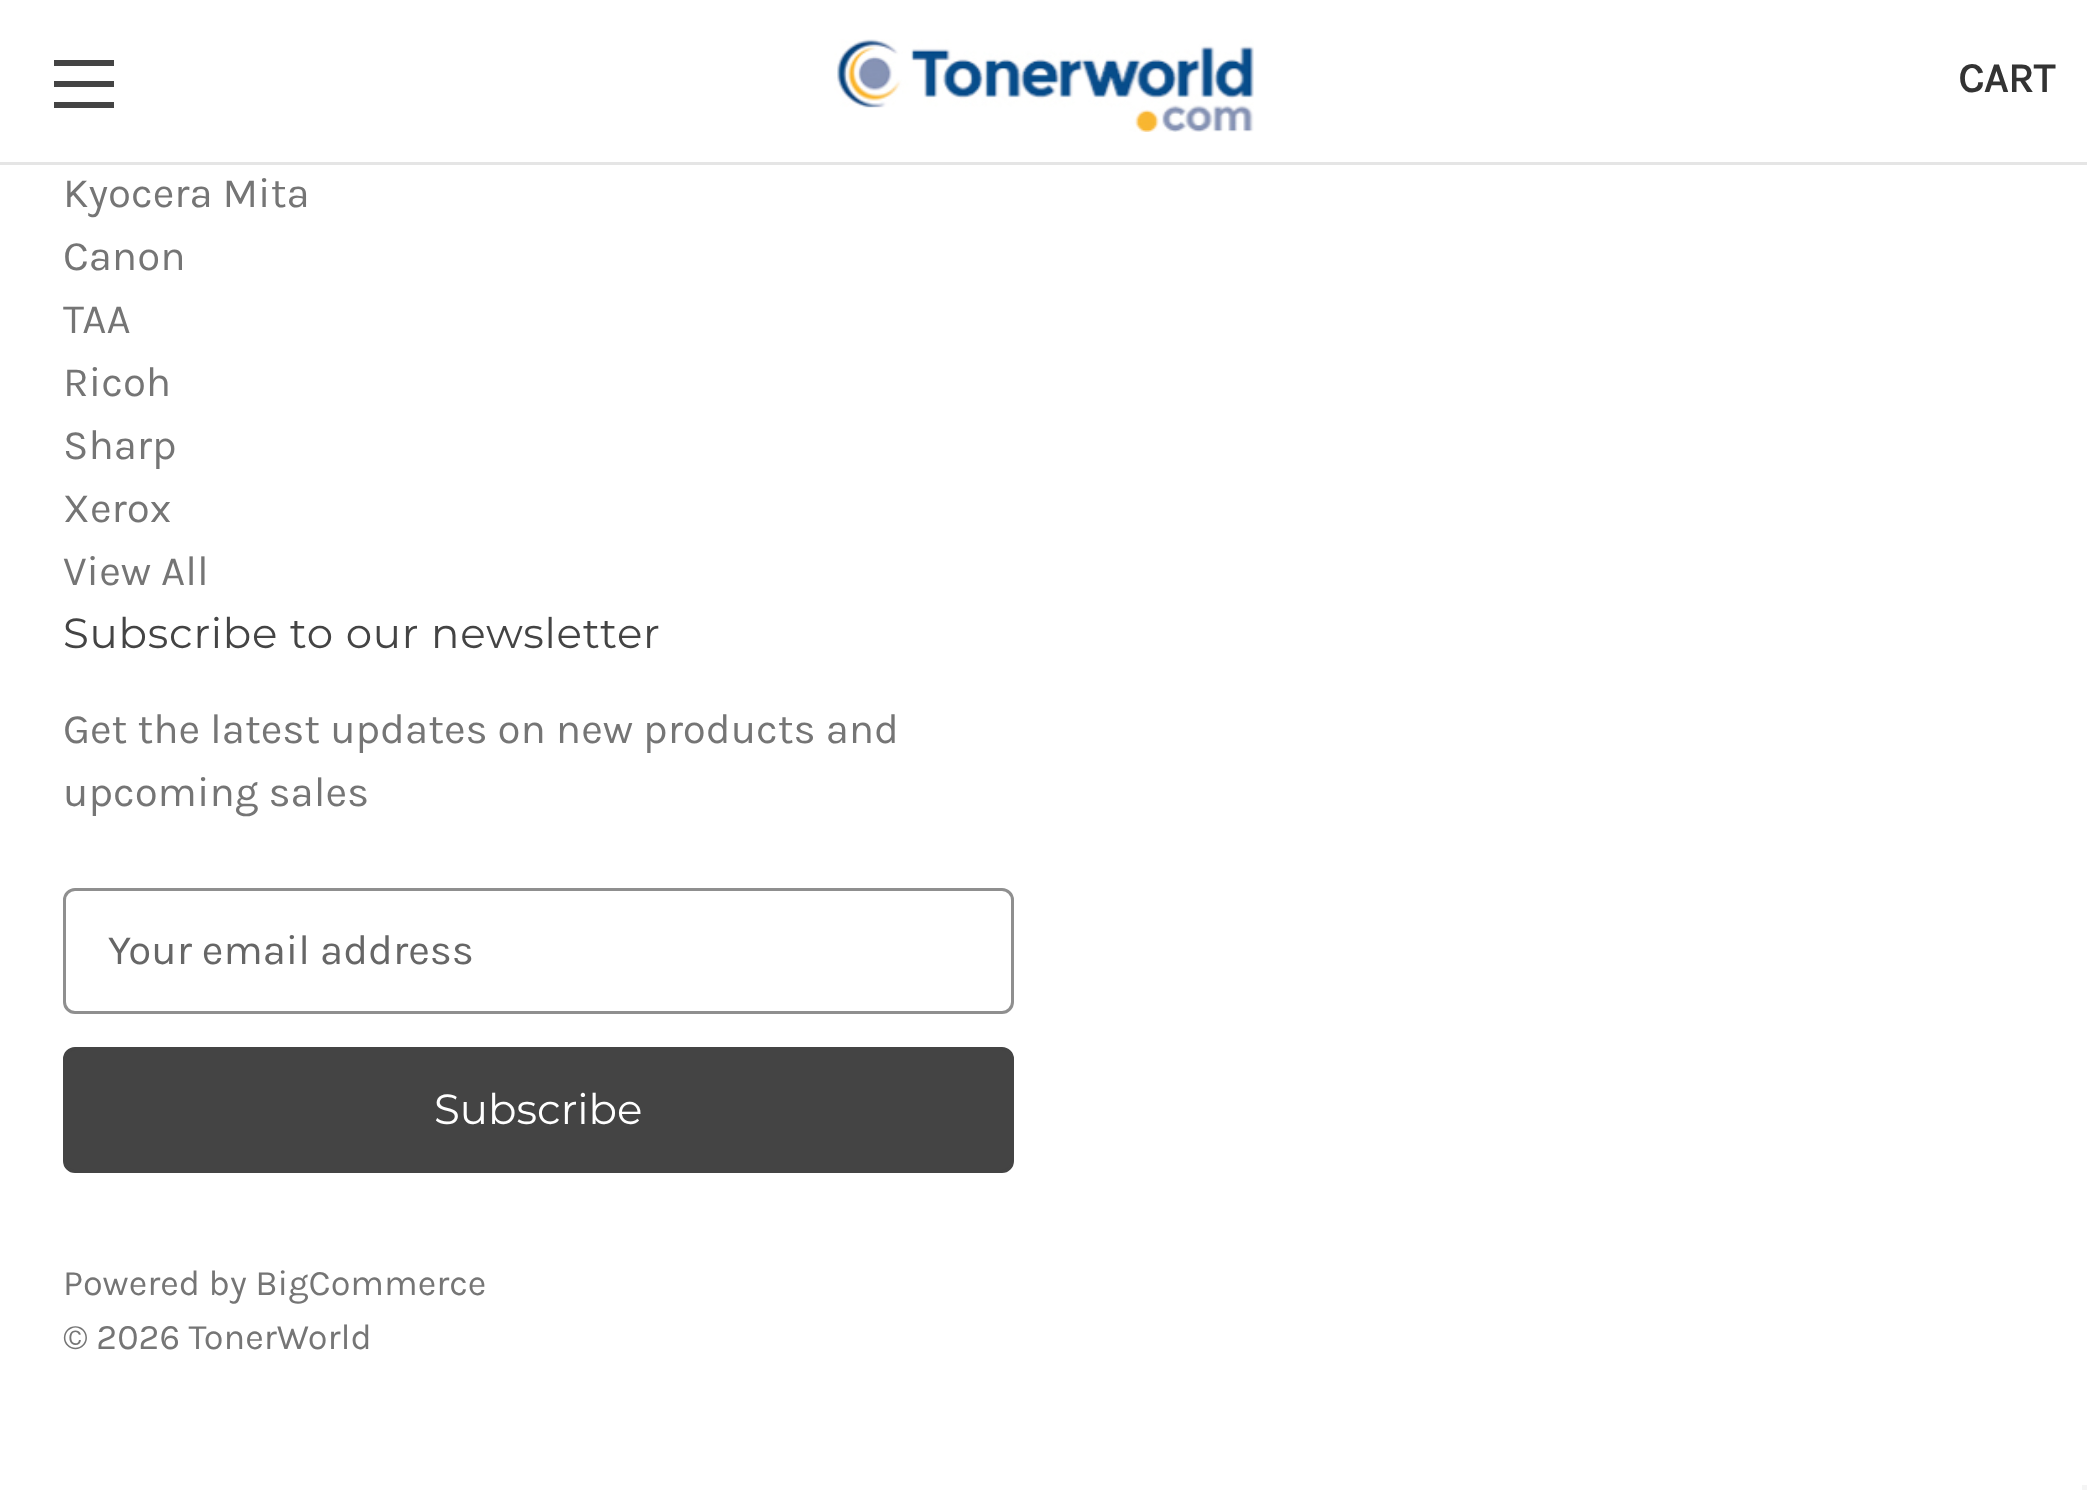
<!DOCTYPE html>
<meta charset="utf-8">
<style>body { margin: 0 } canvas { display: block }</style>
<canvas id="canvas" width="2087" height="1490"></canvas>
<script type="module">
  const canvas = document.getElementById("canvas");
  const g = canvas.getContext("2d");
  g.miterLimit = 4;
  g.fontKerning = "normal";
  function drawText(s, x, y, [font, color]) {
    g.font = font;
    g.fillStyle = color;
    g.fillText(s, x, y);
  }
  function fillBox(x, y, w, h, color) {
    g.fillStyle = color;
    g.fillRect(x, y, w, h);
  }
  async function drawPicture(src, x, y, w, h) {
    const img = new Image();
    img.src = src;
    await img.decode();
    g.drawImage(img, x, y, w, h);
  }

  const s1 = ["bold 42px Karla", "#333333"];
  const s2 = ["42px Karla", "#757575"];
  const s3 = ["42px Montserrat", "#444444"];
  const s4 = ["42px Karla", "#666666"];
  const s5 = ["42px Montserrat", "#FFFFFF"];
  const s6 = ["36px Karla", "#757575"];

  fillBox(0, 0, 2087, 1490, "#FFFFFF");
  fillBox(0, 162, 2087, 3, "#E5E5E5");
  fillBox(54, 81, 60, 6, "#444444");
  fillBox(54, 60, 60, 6, "#444444");
  fillBox(54, 102, 60, 6, "#444444");
  await drawPicture("pic1.png", 834, 39, 420, 93);
  drawText("CART", 1958, 92, s1);
  drawText("Kyocera Mita", 63, 207, s2);
  drawText("Canon", 63, 270, s2);
  drawText("TAA", 63, 333, s2);
  drawText("Ricoh", 63, 396, s2);
  drawText("Sharp", 63, 459, s2);
  drawText("Xerox", 63, 522, s2);
  drawText("View All", 63, 585, s2);
  g.letterSpacing = "0.75px";
  drawText("Subscribe to our newsletter", 63, 648, s3);
  g.letterSpacing = "0px";
  drawText("Get the latest updates on new products and", 63, 743, s2);
  drawText("upcoming sales", 63, 806, s2);
  g.beginPath();
  g.roundRect(64.5, 889.5, 948, 123, 10.5);
  g.strokeStyle = "#8F8F8F";
  g.lineWidth = 3;
  g.stroke();
  drawText("Your email address", 108, 964, s4);
  g.fillStyle = "#444444";
  g.beginPath();
  g.roundRect(64.5, 1048.5, 948, 123, 10.5);
  g.fill();
  g.strokeStyle = "#444444";
  g.stroke();
  drawText("Subscribe", 434, 1124, s5);
  drawText("Powered by BigCommerce", 63, 1295, s6);
  drawText("© 2026 TonerWorld", 63, 1349, s6);
  fillBox(2082, 1485, 5, 5, "#F5F5F5");
</script>
